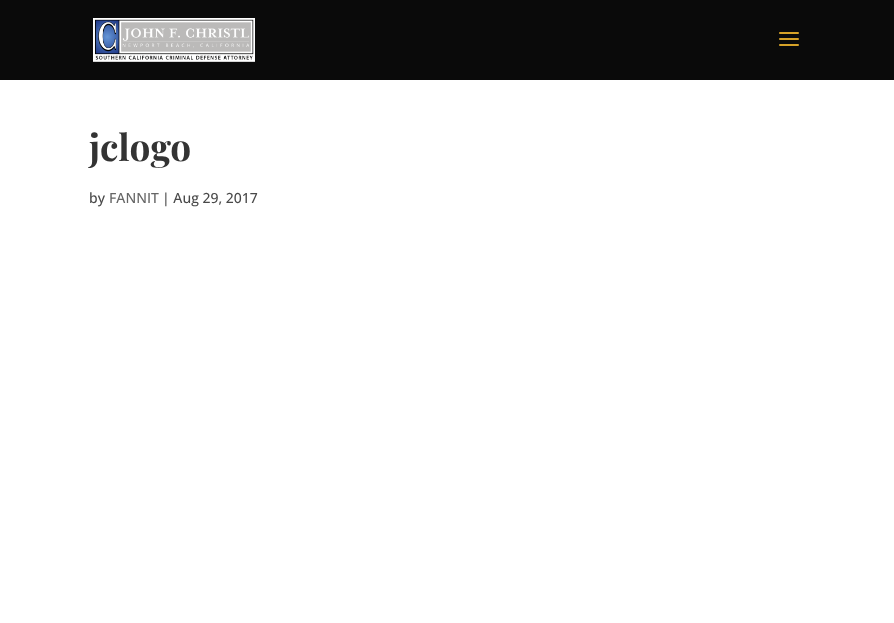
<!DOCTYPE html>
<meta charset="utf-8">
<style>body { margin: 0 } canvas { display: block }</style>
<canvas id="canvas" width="894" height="623"></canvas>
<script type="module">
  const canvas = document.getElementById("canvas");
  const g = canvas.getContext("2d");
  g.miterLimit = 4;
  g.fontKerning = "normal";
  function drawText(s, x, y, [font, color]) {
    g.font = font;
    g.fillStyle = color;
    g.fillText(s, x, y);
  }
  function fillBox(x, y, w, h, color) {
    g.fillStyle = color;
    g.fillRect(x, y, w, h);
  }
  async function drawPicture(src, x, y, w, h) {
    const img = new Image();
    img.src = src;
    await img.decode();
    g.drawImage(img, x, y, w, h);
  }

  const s1 = ["bold 37px Playfair Display", "#333333"];
  const s2 = ["500 14px Open Sans", "#494949"];
  const s3 = ["500 14px Open Sans", "#666666"];

  fillBox(0, 0, 894, 623, "#FFFFFF");
  fillBox(0, 0, 894, 80, "#0A0A0A");
  await drawPicture("pic1.png", 93, 18, 162, 44);
  await drawPicture("pic2.png", 779, 32, 20, 14);
  drawText("jclogo", 89, 161, s1);
  drawText("by", 89, 203, s2);
  drawText("FANNIT", 109, 203, s3);
  drawText("| Aug 29, 2017", 162, 203, s2);
</script>
